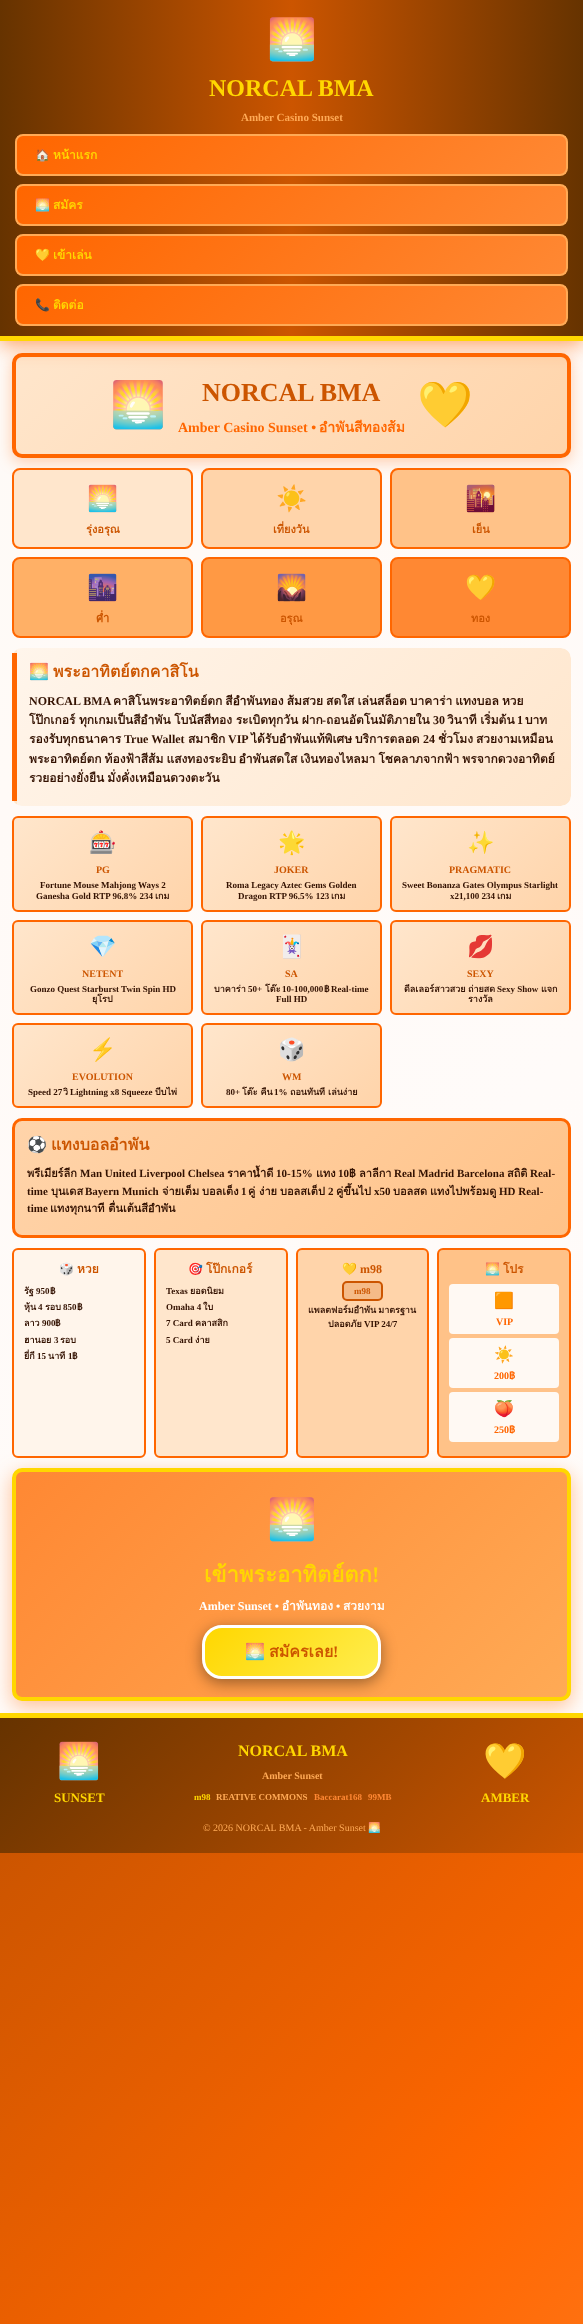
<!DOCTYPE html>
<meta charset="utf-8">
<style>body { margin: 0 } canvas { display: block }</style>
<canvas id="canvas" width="583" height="2324"></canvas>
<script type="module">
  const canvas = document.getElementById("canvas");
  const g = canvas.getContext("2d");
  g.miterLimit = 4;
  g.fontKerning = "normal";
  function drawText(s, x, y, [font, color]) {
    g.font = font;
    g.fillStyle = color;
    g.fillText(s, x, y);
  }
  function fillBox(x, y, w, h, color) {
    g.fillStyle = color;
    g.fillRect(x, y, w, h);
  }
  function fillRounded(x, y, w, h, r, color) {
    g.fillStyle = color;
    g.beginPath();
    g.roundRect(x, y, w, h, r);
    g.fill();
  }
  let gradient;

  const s1 = ["40px Noto Color Emoji", "#331100"];
  const s2 = ["bold 24px Liberation Serif", "#FFD700"];
  const s3 = ["bold 11px Liberation Serif", "#FFAA55"];
  const s4 = ["bold 12px Noto Color Emoji", "#FFD700"];
  const s5 = ["bold 12px Loma", "#FFD700"];
  const s6 = ["45px Noto Color Emoji", "#331100"];
  const s7 = ["bold 26px Liberation Serif", "#CC5500"];
  const s8 = ["bold 14px Liberation Serif", "#FF6600"];
  const s9 = ["bold 14px Loma", "#FF6600"];
  const s10 = ["25px Noto Color Emoji", "#331100"];
  const s11 = ["bold 11px Loma", "#CC5500"];
  const s12 = ["bold 16px Noto Color Emoji", "#CC5500"];
  const s13 = ["bold 16px Loma", "#CC5500"];
  const s14 = ["bold 12px Liberation Serif", "#331100"];
  const s15 = ["bold 12px Loma", "#331100"];
  const s16 = ["22px Noto Color Emoji", "#331100"];
  const s17 = ["bold 10px Liberation Serif", "#CC5500"];
  const s18 = ["bold 9px Liberation Serif", "#331100"];
  const s19 = ["bold 9px Loma", "#331100"];
  const s20 = ["bold 11px Loma", "#331100"];
  const s21 = ["bold 11px Liberation Serif", "#331100"];
  const s22 = ["bold 12px Noto Color Emoji", "#CC5500"];
  const s23 = ["bold 12px Loma", "#CC5500"];
  const s24 = ["bold 12px Liberation Serif", "#CC5500"];
  const s25 = ["bold 9px Liberation Serif", "#CC5500"];
  const s26 = ["16px Noto Color Emoji", "#331100"];
  const s27 = ["bold 10px Liberation Serif", "#FF6600"];
  const s28 = ["bold 10px Loma", "#FF6600"];
  const s29 = ["bold 22px Loma", "#FFD700"];
  const s30 = ["bold 22px Liberation Serif", "#FFD700"];
  const s31 = ["bold 12px Liberation Serif", "#FFFFFF"];
  const s32 = ["bold 12px Loma", "#FFFFFF"];
  const s33 = ["bold 16px Liberation Serif", "#CC5500"];
  const s34 = ["35px Noto Color Emoji", "#331100"];
  const s35 = ["bold 13px Liberation Serif", "#FFD700"];
  const s36 = ["bold 16px Liberation Serif", "#FFD700"];
  const s37 = ["bold 10px Liberation Serif", "#FFAA55"];
  const s38 = ["bold 9px Liberation Serif", "#FFD700"];
  const s39 = ["bold 9px Liberation Serif", "#FFAA55"];
  const s40 = ["bold 9px Liberation Serif", "#FF8833"];
  const s41 = ["10px Liberation Serif", "#FFAA55"];
  const s42 = ["10px Noto Color Emoji", "#FFAA55"];

  fillBox(0, 0, 583, 2324, "#FFFFFF");
  gradient = g.createLinearGradient(-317, 318, 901, 1536);
  gradient.addColorStop(0, "#FDFAF7");
  gradient.addColorStop(0.33, "#FFFAF7");
  gradient.addColorStop(0.67, "#FFFBF9");
  gradient.addColorStop(1, "#FFFCFA");
  g.fillStyle = gradient;
  g.fillRect(0, 341, 583, 1372);
  gradient = g.createLinearGradient(-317, 2171, 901, 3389);
  gradient.addColorStop(0, "#CC5500");
  gradient.addColorStop(0.33, "#FF6600");
  gradient.addColorStop(0.67, "#FF8833");
  gradient.addColorStop(1, "#FFAA55");
  g.fillStyle = gradient;
  g.fillRect(0, 1853, 583, 471);
  g.fillStyle = "rgba(255, 102, 0, 0.3)";
  g.filter = "blur(7.5px)";
  g.beginPath();
  g.roundRect(12, 357, 559, 105, 10);
  g.fill();
  g.filter = "none";
  gradient = g.createLinearGradient(130, 244, 454, 568);
  gradient.addColorStop(0, "#FFE6CC");
  gradient.addColorStop(1, "#FFD4AA");
  g.fillStyle = gradient;
  g.fillRect(16, 357, 551, 97);
  g.beginPath();
  g.roundRect(14, 355, 555, 101, 8);
  g.strokeStyle = "#FF6600";
  g.lineWidth = 4;
  g.stroke();
  g.fillStyle = "rgba(255, 102, 0, 0.6)";
  g.filter = "blur(10px)";
  g.beginPath();
  g.rect(0, 4, 583, 341);
  g.fill();
  g.filter = "none";
  gradient = g.createLinearGradient(0, 168, 583, 168);
  gradient.addColorStop(0, "#663300");
  gradient.addColorStop(0.5, "#CC5500");
  gradient.addColorStop(1, "#663300");
  g.fillStyle = gradient;
  g.fillRect(0, 0, 583, 336);
  fillBox(0, 336, 583, 5, "#FFD700");
  drawText("🌅", 267, 53, s1);
  drawText("NORCAL BMA", 209, 96, s2);
  drawText("Amber Casino Sunset", 241, 121, s3);
  g.save();
  g.beginPath();
  g.roundRect(15, 134, 553, 42, 8);
  g.clip();
  gradient = g.createLinearGradient(145, 8, 438, 302);
  gradient.addColorStop(0, "#FF6600");
  gradient.addColorStop(1, "#FF8833");
  g.fillStyle = gradient;
  g.fillRect(17, 136, 549, 38);
  g.restore();
  g.beginPath();
  g.roundRect(16, 135, 551, 40, 7);
  g.strokeStyle = "#FFAA55";
  g.lineWidth = 2;
  g.stroke();
  drawText("🏠", 35, 159, s4);
  drawText("หน้าแรก", 53, 159, s5);
  g.save();
  g.beginPath();
  g.roundRect(15, 184, 553, 42, 8);
  g.clip();
  gradient = g.createLinearGradient(145, 58, 438, 352);
  gradient.addColorStop(0, "#FF6600");
  gradient.addColorStop(1, "#FF8833");
  g.fillStyle = gradient;
  g.fillRect(17, 186, 549, 38);
  g.restore();
  g.beginPath();
  g.roundRect(16, 185, 551, 40, 7);
  g.stroke();
  drawText("🌅", 35, 209, s4);
  drawText("สมัคร", 53, 209, s5);
  g.save();
  g.beginPath();
  g.roundRect(15, 234, 553, 42, 8);
  g.clip();
  gradient = g.createLinearGradient(145, 108, 438, 402);
  gradient.addColorStop(0, "#FF6600");
  gradient.addColorStop(1, "#FF8833");
  g.fillStyle = gradient;
  g.fillRect(17, 236, 549, 38);
  g.restore();
  g.beginPath();
  g.roundRect(16, 235, 551, 40, 7);
  g.stroke();
  drawText("💛", 35, 259, s4);
  drawText("เข้าเล่น", 53, 259, s5);
  g.save();
  g.beginPath();
  g.roundRect(15, 284, 553, 42, 8);
  g.clip();
  gradient = g.createLinearGradient(145, 158, 438, 452);
  gradient.addColorStop(0, "#FF6600");
  gradient.addColorStop(1, "#FF8833");
  g.fillStyle = gradient;
  g.fillRect(17, 286, 549, 38);
  g.restore();
  g.beginPath();
  g.roundRect(16, 285, 551, 40, 7);
  g.stroke();
  drawText("📞", 35, 309, s4);
  drawText("ติดต่อ", 53, 309, s5);
  drawText("🌅", 110, 420, s6);
  drawText("NORCAL BMA", 202, 401, s7);
  drawText("Amber Casino Sunset •", 178, 432, s8);
  drawText("อำพันสีทองส้ม", 319, 432, s9);
  drawText("💛", 417, 420, s6);
  g.fillStyle = "#FFE6CC";
  g.beginPath();
  g.roundRect(13, 469, 179, 79, 7);
  g.fill();
  g.strokeStyle = "#FF6600";
  g.stroke();
  drawText("🌅", 87, 507, s10);
  drawText("รุ่งอรุณ", 86, 533, s11);
  g.fillStyle = "#FFD4AA";
  g.beginPath();
  g.roundRect(202, 469, 179, 79, 7);
  g.fill();
  g.stroke();
  drawText("☀️", 276, 507, s10);
  drawText("เที่ยงวัน", 273, 533, s11);
  g.fillStyle = "#FFC288";
  g.beginPath();
  g.roundRect(391, 469, 179, 79, 7);
  g.fill();
  g.stroke();
  drawText("🌇", 465, 507, s10);
  drawText("เย็น", 472, 533, s11);
  g.fillStyle = "#FFB066";
  g.beginPath();
  g.roundRect(13, 558, 179, 79, 7);
  g.fill();
  g.stroke();
  drawText("🌆", 87, 596, s10);
  drawText("ค่ำ", 96, 622, s11);
  g.fillStyle = "#FF9944";
  g.beginPath();
  g.roundRect(202, 558, 179, 79, 7);
  g.fill();
  g.stroke();
  drawText("🌄", 276, 596, s10);
  drawText("อรุณ", 280, 622, s11);
  g.fillStyle = "#FF8833";
  g.beginPath();
  g.roundRect(391, 558, 179, 79, 7);
  g.fill();
  g.stroke();
  drawText("💛", 465, 596, s10);
  drawText("ทอง", 471, 622, s11);
  g.save();
  g.beginPath();
  g.roundRect(12, 648, 559, 158, 10);
  g.clip();
  gradient = g.createLinearGradient(-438, 549, -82, 905);
  gradient.addColorStop(0, "#FFF5EB");
  gradient.addColorStop(1, "#FFE6CC");
  g.fillStyle = gradient;
  g.fillRect(13, 648, 4, 158);
  gradient = g.createLinearGradient(116, 549, 472, 905);
  gradient.addColorStop(0, "#FFF5EB");
  gradient.addColorStop(1, "#FFE6CC");
  g.fillStyle = gradient;
  g.beginPath();
  g.roundRect(17, 648, 554, 158, [0, 10, 10, 0]);
  g.fill();
  g.restore();
  fillBox(12, 653, 5, 148, "#FF6600");
  drawText("🌅", 29, 677, s12);
  drawText("พระอาทิตย์ตกคาสิโน", 53, 677, s13);
  drawText("NORCAL BMA", 29, 705, s14);
  g.wordSpacing = "-1px";
  drawText("คาสิโนพระอาทิตย์ตก สีอำพันทอง ส้มสวย สดใส เล่นสล็อต บาคาร่า แทงบอล หวย", 113, 705, s15);
  g.wordSpacing = "-0.5px";
  drawText("โป๊กเกอร์ ทุกเกมเป็นสีอำพัน โบนัสสีทอง ระเบิดทุกวัน ฝาก", 29, 724, s15);
  g.wordSpacing = "0px";
  drawText("-", 322, 724, s14);
  drawText("ถอนอัตโนมัติภายใน", 326, 724, s15);
  drawText("30", 433, 724, s14);
  g.wordSpacing = "-0.5px";
  drawText("วินาที เริ่มต้น", 447, 724, s15);
  g.wordSpacing = "0px";
  drawText("1", 517, 724, s14);
  drawText("บาท", 525, 724, s15);
  drawText("รองรับทุกธนาคาร", 29, 743, s15);
  drawText("True Wallet", 124, 743, s14);
  drawText("สมาชิก", 188, 743, s15);
  drawText("VIP", 228, 743, s14);
  drawText("ได้รับอำพันแท้พิเศษ", 251, 743, s15);
  drawText("บริการตลอด", 355, 743, s15);
  drawText("24", 423, 743, s14);
  drawText("ชั่วโมง", 438, 743, s15);
  drawText("สวยงามเหมือน", 476, 743, s15);
  g.wordSpacing = "-1px";
  drawText("พระอาทิตย์ตก ท้องฟ้าสีส้ม แสงทองระยิบ อำพันสดใส เงินทองไหลมา โชคลาภจากฟ้า พรจากดวงอาทิตย์", 29, 763, s15);
  drawText("รวยอย่างยั่งยืน มั่งคั่งเหมือนดวงตะวัน", 29, 782, s15);
  g.save();
  g.beginPath();
  g.roundRect(12, 816, 181, 96, 6);
  g.clip();
  gradient = g.createLinearGradient(-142, 705, -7.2, 839);
  gradient.addColorStop(0, "#FFE6CC");
  gradient.addColorStop(1, "#FFD4AA");
  g.fillStyle = gradient;
  g.fillRect(12, 817, 2, 1);
  gradient = g.createLinearGradient(212, 705, 347, 839);
  gradient.addColorStop(0, "#FFE6CC");
  gradient.addColorStop(1, "#FFD4AA");
  g.fillStyle = gradient;
  g.fillRect(191, 817, 2, 1);
  g.restore();
  gradient = g.createLinearGradient(35, 797, 170, 931);
  gradient.addColorStop(0, "#FFE6CC");
  gradient.addColorStop(1, "#FFD4AA");
  g.fillStyle = gradient;
  g.fillRect(14, 818, 177, 92);
  g.save();
  g.beginPath();
  g.roundRect(12, 816, 181, 96, 6);
  g.clip();
  gradient = g.createLinearGradient(-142, 889, -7.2, 1023);
  gradient.addColorStop(0, "#FFE6CC");
  gradient.addColorStop(1, "#FFD4AA");
  g.fillStyle = gradient;
  g.fillRect(12, 910, 2, 1);
  gradient = g.createLinearGradient(212, 889, 347, 1023);
  gradient.addColorStop(0, "#FFE6CC");
  gradient.addColorStop(1, "#FFD4AA");
  g.fillStyle = gradient;
  g.fillRect(191, 910, 2, 1);
  g.restore();
  g.beginPath();
  g.roundRect(13, 817, 179, 94, 5);
  g.stroke();
  g.wordSpacing = "0px";
  drawText("🎰", 89, 850, s16);
  drawText("PG", 96, 873, s17);
  drawText("Fortune Mouse Mahjong Ways 2", 40, 888, s18);
  drawText("Ganesha Gold RTP 96.8% 234", 36, 899, s18);
  drawText("เกม", 155, 899, s19);
  g.save();
  g.beginPath();
  g.roundRect(201, 816, 181, 96, 6);
  g.clip();
  gradient = g.createLinearGradient(47, 705, 182, 839);
  gradient.addColorStop(0, "#FFE6CC");
  gradient.addColorStop(1, "#FFD4AA");
  g.fillStyle = gradient;
  g.fillRect(201, 817, 2, 1);
  gradient = g.createLinearGradient(401, 705, 536, 839);
  gradient.addColorStop(0, "#FFE6CC");
  gradient.addColorStop(1, "#FFD4AA");
  g.fillStyle = gradient;
  g.fillRect(380, 817, 2, 1);
  g.restore();
  gradient = g.createLinearGradient(224, 797, 359, 931);
  gradient.addColorStop(0, "#FFE6CC");
  gradient.addColorStop(1, "#FFD4AA");
  g.fillStyle = gradient;
  g.fillRect(203, 818, 177, 92);
  g.save();
  g.beginPath();
  g.roundRect(201, 816, 181, 96, 6);
  g.clip();
  gradient = g.createLinearGradient(47, 889, 182, 1023);
  gradient.addColorStop(0, "#FFE6CC");
  gradient.addColorStop(1, "#FFD4AA");
  g.fillStyle = gradient;
  g.fillRect(201, 910, 2, 1);
  gradient = g.createLinearGradient(401, 889, 536, 1023);
  gradient.addColorStop(0, "#FFE6CC");
  gradient.addColorStop(1, "#FFD4AA");
  g.fillStyle = gradient;
  g.fillRect(380, 910, 2, 1);
  g.restore();
  g.beginPath();
  g.roundRect(202, 817, 179, 94, 5);
  g.stroke();
  drawText("🌟", 278, 850, s16);
  drawText("JOKER", 274, 873, s17);
  drawText("Roma Legacy Aztec Gems Golden", 226, 888, s18);
  drawText("Dragon RTP 96.5% 123", 238, 899, s18);
  drawText("เกม", 331, 899, s19);
  g.save();
  g.beginPath();
  g.roundRect(390, 816, 181, 96, 6);
  g.clip();
  gradient = g.createLinearGradient(236, 705, 371, 839);
  gradient.addColorStop(0, "#FFE6CC");
  gradient.addColorStop(1, "#FFD4AA");
  g.fillStyle = gradient;
  g.fillRect(390, 817, 2, 1);
  gradient = g.createLinearGradient(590, 705, 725, 839);
  gradient.addColorStop(0, "#FFE6CC");
  gradient.addColorStop(1, "#FFD4AA");
  g.fillStyle = gradient;
  g.fillRect(569, 817, 2, 1);
  g.restore();
  gradient = g.createLinearGradient(413, 797, 548, 931);
  gradient.addColorStop(0, "#FFE6CC");
  gradient.addColorStop(1, "#FFD4AA");
  g.fillStyle = gradient;
  g.fillRect(392, 818, 177, 92);
  g.save();
  g.beginPath();
  g.roundRect(390, 816, 181, 96, 6);
  g.clip();
  gradient = g.createLinearGradient(236, 889, 371, 1023);
  gradient.addColorStop(0, "#FFE6CC");
  gradient.addColorStop(1, "#FFD4AA");
  g.fillStyle = gradient;
  g.fillRect(390, 910, 2, 1);
  gradient = g.createLinearGradient(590, 889, 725, 1023);
  gradient.addColorStop(0, "#FFE6CC");
  gradient.addColorStop(1, "#FFD4AA");
  g.fillStyle = gradient;
  g.fillRect(569, 910, 2, 1);
  g.restore();
  g.beginPath();
  g.roundRect(391, 817, 179, 94, 5);
  g.stroke();
  drawText("✨", 467, 850, s16);
  drawText("PRAGMATIC", 449, 873, s17);
  drawText("Sweet Bonanza Gates Olympus Starlight", 402, 888, s18);
  drawText("x21,100 234", 450, 899, s18);
  drawText("เกม", 497, 899, s19);
  g.save();
  g.beginPath();
  g.roundRect(12, 920, 181, 95, 6);
  g.clip();
  gradient = g.createLinearGradient(-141, 810, -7.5, 944);
  gradient.addColorStop(0, "#FFE6CC");
  gradient.addColorStop(1, "#FFD4AA");
  g.fillStyle = gradient;
  g.fillRect(12, 921, 2, 1);
  gradient = g.createLinearGradient(213, 810, 347, 944);
  gradient.addColorStop(0, "#FFE6CC");
  gradient.addColorStop(1, "#FFD4AA");
  g.fillStyle = gradient;
  g.fillRect(191, 921, 2, 1);
  g.restore();
  gradient = g.createLinearGradient(36, 901, 170, 1035);
  gradient.addColorStop(0, "#FFE6CC");
  gradient.addColorStop(1, "#FFD4AA");
  g.fillStyle = gradient;
  g.fillRect(14, 922, 177, 91);
  g.save();
  g.beginPath();
  g.roundRect(12, 920, 181, 95, 6);
  g.clip();
  gradient = g.createLinearGradient(-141, 992, -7.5, 1126);
  gradient.addColorStop(0, "#FFE6CC");
  gradient.addColorStop(1, "#FFD4AA");
  g.fillStyle = gradient;
  g.fillRect(12, 1013, 2, 1);
  gradient = g.createLinearGradient(213, 992, 347, 1126);
  gradient.addColorStop(0, "#FFE6CC");
  gradient.addColorStop(1, "#FFD4AA");
  g.fillStyle = gradient;
  g.fillRect(191, 1013, 2, 1);
  g.restore();
  g.beginPath();
  g.roundRect(13, 921, 179, 93, 5);
  g.stroke();
  drawText("💎", 89, 954, s16);
  drawText("NETENT", 82, 977, s17);
  drawText("Gonzo Quest Starburst Twin Spin HD", 30, 992, s18);
  drawText("ยุโรป", 92, 1002, s19);
  g.save();
  g.beginPath();
  g.roundRect(201, 920, 181, 95, 6);
  g.clip();
  gradient = g.createLinearGradient(48, 810, 182, 944);
  gradient.addColorStop(0, "#FFE6CC");
  gradient.addColorStop(1, "#FFD4AA");
  g.fillStyle = gradient;
  g.fillRect(201, 921, 2, 1);
  gradient = g.createLinearGradient(402, 810, 536, 944);
  gradient.addColorStop(0, "#FFE6CC");
  gradient.addColorStop(1, "#FFD4AA");
  g.fillStyle = gradient;
  g.fillRect(380, 921, 2, 1);
  g.restore();
  gradient = g.createLinearGradient(225, 901, 359, 1035);
  gradient.addColorStop(0, "#FFE6CC");
  gradient.addColorStop(1, "#FFD4AA");
  g.fillStyle = gradient;
  g.fillRect(203, 922, 177, 91);
  g.save();
  g.beginPath();
  g.roundRect(201, 920, 181, 95, 6);
  g.clip();
  gradient = g.createLinearGradient(48, 992, 182, 1126);
  gradient.addColorStop(0, "#FFE6CC");
  gradient.addColorStop(1, "#FFD4AA");
  g.fillStyle = gradient;
  g.fillRect(201, 1013, 2, 1);
  gradient = g.createLinearGradient(402, 992, 536, 1126);
  gradient.addColorStop(0, "#FFE6CC");
  gradient.addColorStop(1, "#FFD4AA");
  g.fillStyle = gradient;
  g.fillRect(380, 1013, 2, 1);
  g.restore();
  g.beginPath();
  g.roundRect(202, 921, 179, 93, 5);
  g.stroke();
  drawText("🃏", 278, 954, s16);
  drawText("SA", 285, 977, s17);
  drawText("บาคาร่า", 214, 992, s19);
  drawText("50+", 248, 992, s18);
  drawText("โต๊ะ", 265, 992, s19);
  drawText("10-100,000", 282, 992, s18);
  drawText("฿", 324, 992, s19);
  drawText("Real-time", 331, 992, s18);
  drawText("Full HD", 276, 1002, s18);
  g.save();
  g.beginPath();
  g.roundRect(390, 920, 181, 95, 6);
  g.clip();
  gradient = g.createLinearGradient(237, 810, 371, 944);
  gradient.addColorStop(0, "#FFE6CC");
  gradient.addColorStop(1, "#FFD4AA");
  g.fillStyle = gradient;
  g.fillRect(390, 921, 2, 1);
  gradient = g.createLinearGradient(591, 810, 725, 944);
  gradient.addColorStop(0, "#FFE6CC");
  gradient.addColorStop(1, "#FFD4AA");
  g.fillStyle = gradient;
  g.fillRect(569, 921, 2, 1);
  g.restore();
  gradient = g.createLinearGradient(414, 901, 548, 1035);
  gradient.addColorStop(0, "#FFE6CC");
  gradient.addColorStop(1, "#FFD4AA");
  g.fillStyle = gradient;
  g.fillRect(392, 922, 177, 91);
  g.save();
  g.beginPath();
  g.roundRect(390, 920, 181, 95, 6);
  g.clip();
  gradient = g.createLinearGradient(237, 992, 371, 1126);
  gradient.addColorStop(0, "#FFE6CC");
  gradient.addColorStop(1, "#FFD4AA");
  g.fillStyle = gradient;
  g.fillRect(390, 1013, 2, 1);
  gradient = g.createLinearGradient(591, 992, 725, 1126);
  gradient.addColorStop(0, "#FFE6CC");
  gradient.addColorStop(1, "#FFD4AA");
  g.fillStyle = gradient;
  g.fillRect(569, 1013, 2, 1);
  g.restore();
  g.beginPath();
  g.roundRect(391, 921, 179, 93, 5);
  g.stroke();
  drawText("💋", 467, 954, s16);
  drawText("SEXY", 467, 977, s17);
  drawText("ดีลเลอร์สาวสวย", 404, 992, s19);
  drawText("ถ่ายสด", 468, 992, s19);
  drawText("Sexy Show", 497, 992, s18);
  drawText("แจก", 541, 992, s19);
  drawText("รางวัล", 468, 1002, s19);
  g.save();
  g.beginPath();
  g.roundRect(12, 1023, 181, 85, 6);
  g.clip();
  gradient = g.createLinearGradient(-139, 920, -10, 1049);
  gradient.addColorStop(0, "#FFE6CC");
  gradient.addColorStop(1, "#FFD4AA");
  g.fillStyle = gradient;
  g.fillRect(12, 1024, 2, 1);
  gradient = g.createLinearGradient(215, 920, 344, 1049);
  gradient.addColorStop(0, "#FFE6CC");
  gradient.addColorStop(1, "#FFD4AA");
  g.fillStyle = gradient;
  g.fillRect(191, 1024, 2, 1);
  g.restore();
  gradient = g.createLinearGradient(38, 1001, 167, 1130);
  gradient.addColorStop(0, "#FFE6CC");
  gradient.addColorStop(1, "#FFD4AA");
  g.fillStyle = gradient;
  g.fillRect(14, 1025, 177, 81);
  g.save();
  g.beginPath();
  g.roundRect(12, 1023, 181, 85, 6);
  g.clip();
  gradient = g.createLinearGradient(-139, 1082, -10, 1211);
  gradient.addColorStop(0, "#FFE6CC");
  gradient.addColorStop(1, "#FFD4AA");
  g.fillStyle = gradient;
  g.fillRect(12, 1106, 2, 1);
  gradient = g.createLinearGradient(215, 1082, 344, 1211);
  gradient.addColorStop(0, "#FFE6CC");
  gradient.addColorStop(1, "#FFD4AA");
  g.fillStyle = gradient;
  g.fillRect(191, 1106, 2, 1);
  g.restore();
  g.beginPath();
  g.roundRect(13, 1024, 179, 83, 5);
  g.stroke();
  drawText("⚡", 89, 1057, s16);
  drawText("EVOLUTION", 72, 1080, s17);
  drawText("Speed 27", 28, 1095, s18);
  drawText("วิ", 63, 1095, s19);
  drawText("Lightning x8 Squeeze", 70, 1095, s18);
  drawText("บีบไพ่", 155, 1095, s19);
  g.save();
  g.beginPath();
  g.roundRect(201, 1023, 181, 85, 6);
  g.clip();
  gradient = g.createLinearGradient(50, 920, 179, 1049);
  gradient.addColorStop(0, "#FFE6CC");
  gradient.addColorStop(1, "#FFD4AA");
  g.fillStyle = gradient;
  g.fillRect(201, 1024, 2, 1);
  gradient = g.createLinearGradient(404, 920, 533, 1049);
  gradient.addColorStop(0, "#FFE6CC");
  gradient.addColorStop(1, "#FFD4AA");
  g.fillStyle = gradient;
  g.fillRect(380, 1024, 2, 1);
  g.restore();
  gradient = g.createLinearGradient(227, 1001, 356, 1130);
  gradient.addColorStop(0, "#FFE6CC");
  gradient.addColorStop(1, "#FFD4AA");
  g.fillStyle = gradient;
  g.fillRect(203, 1025, 177, 81);
  g.save();
  g.beginPath();
  g.roundRect(201, 1023, 181, 85, 6);
  g.clip();
  gradient = g.createLinearGradient(50, 1082, 179, 1211);
  gradient.addColorStop(0, "#FFE6CC");
  gradient.addColorStop(1, "#FFD4AA");
  g.fillStyle = gradient;
  g.fillRect(201, 1106, 2, 1);
  gradient = g.createLinearGradient(404, 1082, 533, 1211);
  gradient.addColorStop(0, "#FFE6CC");
  gradient.addColorStop(1, "#FFD4AA");
  g.fillStyle = gradient;
  g.fillRect(380, 1106, 2, 1);
  g.restore();
  g.beginPath();
  g.roundRect(202, 1024, 179, 83, 5);
  g.stroke();
  drawText("🎲", 278, 1057, s16);
  drawText("WM", 282, 1080, s17);
  drawText("80+", 226, 1095, s18);
  drawText("โต๊ะ คืน", 242, 1095, s19);
  drawText("1%", 274, 1095, s18);
  drawText("ถอนทันที เล่นง่าย", 290, 1095, s19);
  gradient = g.createLinearGradient(125, 1011, 458, 1345);
  gradient.addColorStop(0, "#FFD4AA");
  gradient.addColorStop(1, "#FFC288");
  g.fillStyle = gradient;
  g.fillRect(15, 1121, 553, 114);
  g.beginPath();
  g.roundRect(13.5, 1119.5, 556, 117, 8.5);
  g.lineWidth = 3;
  g.stroke();
  drawText("⚽", 27, 1150, s12);
  drawText("แทงบอลอำพัน", 51, 1150, s13);
  drawText("พรีเมียร์ลีก", 27, 1177, s20);
  drawText("Man United Liverpool Chelsea", 80, 1177, s21);
  drawText("ราคาน้ำดี", 227, 1177, s20);
  drawText("10-15%", 276, 1177, s21);
  drawText("แทง", 316, 1177, s20);
  drawText("10", 338, 1177, s21);
  drawText("฿", 349, 1177, s20);
  drawText("ลาลีกา", 359, 1177, s20);
  drawText("Real Madrid Barcelona", 394, 1177, s21);
  drawText("สถิติ", 507, 1177, s20);
  drawText("Real-", 530, 1177, s21);
  drawText("time", 27, 1195, s21);
  drawText("บุนเดส", 51, 1195, s20);
  drawText("Bayern Munich", 85, 1195, s21);
  drawText("จ่ายเต็ม", 162, 1195, s20);
  drawText("บอลเต็ง", 202, 1195, s20);
  drawText("1", 241, 1195, s21);
  drawText("คู่ ง่าย", 248, 1195, s20);
  drawText("บอลสเต็ป", 280, 1195, s20);
  drawText("2", 328, 1195, s21);
  drawText("คู่ขึ้นไป", 336, 1195, s20);
  drawText("x50", 374, 1195, s21);
  drawText("บอลสด", 393, 1195, s20);
  drawText("แทงไปพร้อมดู", 430, 1195, s20);
  drawText("HD Real-", 499, 1195, s21);
  drawText("time", 27, 1212, s21);
  drawText("แทงทุกนาที ตื่นเต้นสีอำพัน", 50, 1212, s20);
  g.fillStyle = "rgba(255, 136, 51, 0.5)";
  g.filter = "blur(10px)";
  g.beginPath();
  g.roundRect(12, 1474, 559, 233, 10);
  g.fill();
  g.filter = "none";
  g.fillStyle = "#FFF5EB";
  g.beginPath();
  g.roundRect(13, 1249, 132, 208, 5);
  g.fill();
  g.lineWidth = 2;
  g.stroke();
  drawText("🎲", 59, 1273, s22);
  drawText("หวย", 77, 1273, s23);
  drawText("รัฐ", 24, 1294, s19);
  drawText("950", 36, 1294, s18);
  drawText("฿", 50, 1294, s19);
  drawText("หุ้น", 24, 1310, s19);
  drawText("4", 38, 1310, s18);
  drawText("รอบ", 45, 1310, s19);
  drawText("850", 63, 1310, s18);
  drawText("฿", 77, 1310, s19);
  drawText("ลาว", 24, 1326, s19);
  drawText("900", 42, 1326, s18);
  drawText("฿", 55, 1326, s19);
  drawText("ฮานอย", 24, 1343, s19);
  drawText("3", 54, 1343, s18);
  drawText("รอบ", 60, 1343, s19);
  drawText("ยี่กี", 24, 1359, s19);
  drawText("15", 37, 1359, s18);
  drawText("นาที", 48, 1359, s19);
  drawText("1", 68, 1359, s18);
  drawText("฿", 72, 1359, s19);
  g.fillStyle = "#FFE6CC";
  g.beginPath();
  g.roundRect(155, 1249, 132, 208, 5);
  g.fill();
  g.stroke();
  drawText("🎯", 188, 1273, s22);
  drawText("โป๊กเกอร์", 206, 1273, s23);
  drawText("Texas", 166, 1294, s18);
  drawText("ยอดนิยม", 190, 1294, s19);
  drawText("Omaha 4", 166, 1310, s18);
  drawText("ใบ", 203, 1310, s19);
  drawText("7 Card", 166, 1326, s18);
  drawText("คลาสสิก", 195, 1326, s19);
  drawText("5 Card", 166, 1343, s18);
  drawText("ง่าย", 195, 1343, s19);
  g.fillStyle = "#FFD4AA";
  g.beginPath();
  g.roundRect(297, 1249, 131, 208, 5);
  g.fill();
  g.stroke();
  drawText("💛", 342, 1273, s22);
  drawText("m98", 360, 1273, s24);
  g.fillStyle = "#F5BB88";
  g.beginPath();
  g.roundRect(343, 1282, 39, 18, 4);
  g.fill();
  g.strokeStyle = "#CC5500";
  g.stroke();
  drawText("m98", 354, 1294, s25);
  g.wordSpacing = "-1px";
  drawText("แพลตฟอร์มอำพัน มาตรฐาน", 308, 1313, s19);
  g.wordSpacing = "0px";
  drawText("ปลอดภัย", 328, 1327, s19);
  drawText("VIP 24/7", 364, 1327, s18);
  g.fillStyle = "#FFC288";
  g.beginPath();
  g.roundRect(438, 1249, 132, 208, 5);
  g.fill();
  g.strokeStyle = "#FF6600";
  g.stroke();
  drawText("🌅", 485, 1273, s22);
  drawText("โปร", 503, 1273, s23);
  fillRounded(449, 1284, 110, 50, 4, "#FFF9F3");
  drawText("🟧", 494, 1306, s26);
  drawText("VIP", 496, 1325, s27);
  fillRounded(449, 1338, 110, 50, 4, "#FFF9F3");
  drawText("☀️", 494, 1360, s26);
  drawText("200", 494, 1379, s27);
  drawText("฿", 509, 1379, s28);
  fillRounded(449, 1392, 110, 50, 4, "#FFF9F3");
  drawText("🍑", 494, 1414, s26);
  drawText("250", 494, 1433, s27);
  drawText("฿", 509, 1433, s28);
  gradient = g.createLinearGradient(98, 1391, 486, 1779);
  gradient.addColorStop(0, "#FF8833");
  gradient.addColorStop(1, "#FFAA55");
  g.fillStyle = gradient;
  g.fillRect(16, 1472, 551, 225);
  g.beginPath();
  g.roundRect(14, 1470, 555, 229, 8);
  g.strokeStyle = "#FFD700";
  g.lineWidth = 4;
  g.stroke();
  drawText("🌅", 267, 1533, s1);
  drawText("เข้าพระอาทิตย์ตก", 204, 1582, s29);
  drawText("!", 372, 1582, s30);
  drawText("Amber Sunset •", 199, 1610, s31);
  drawText("อำพันทอง", 282, 1610, s32);
  drawText("•", 336, 1610, s31);
  drawText("สวยงาม", 343, 1610, s32);
  g.fillStyle = "rgba(0, 0, 0, 0.4)";
  g.filter = "blur(7.5px)";
  g.beginPath();
  g.roundRect(202, 1629, 179, 54, 20);
  g.fill();
  g.filter = "none";
  g.save();
  g.beginPath();
  g.roundRect(202, 1625, 179, 54, 20);
  g.clip();
  gradient = g.createLinearGradient(236, 1597, 347, 1707);
  gradient.addColorStop(0, "#FFD700");
  gradient.addColorStop(1, "#FFED4E");
  g.fillStyle = gradient;
  g.fillRect(205, 1628, 173, 48);
  g.restore();
  g.beginPath();
  g.roundRect(203.5, 1626.5, 176, 51, 18.5);
  g.strokeStyle = "#FFFFFF";
  g.lineWidth = 3;
  g.stroke();
  drawText("🌅", 245, 1657, s12);
  drawText("สมัครเลย", 269, 1657, s13);
  drawText("!", 333, 1657, s33);
  gradient = g.createLinearGradient(112, 1606, 471, 1965);
  gradient.addColorStop(0, "#663300");
  gradient.addColorStop(1, "#CC5500");
  g.fillStyle = gradient;
  g.fillRect(0, 1718, 583, 135);
  fillBox(0, 1713, 583, 5, "#FFD700");
  drawText("🌅", 57, 1773, s34);
  drawText("SUNSET", 54, 1802, s35);
  drawText("NORCAL BMA", 238, 1756, s36);
  drawText("Amber Sunset", 262, 1779, s37);
  drawText("m98", 194, 1800, s38);
  drawText("REATIVE COMMONS", 216, 1800, s39);
  drawText("Baccarat168", 314, 1800, s40);
  drawText("99MB", 368, 1800, s40);
  drawText("💛", 483, 1773, s34);
  drawText("AMBER", 481, 1802, s35);
  drawText("© 2026 NORCAL BMA - Amber Sunset", 203, 1831, s41);
  drawText("🌅", 368, 1831, s42);
</script>
